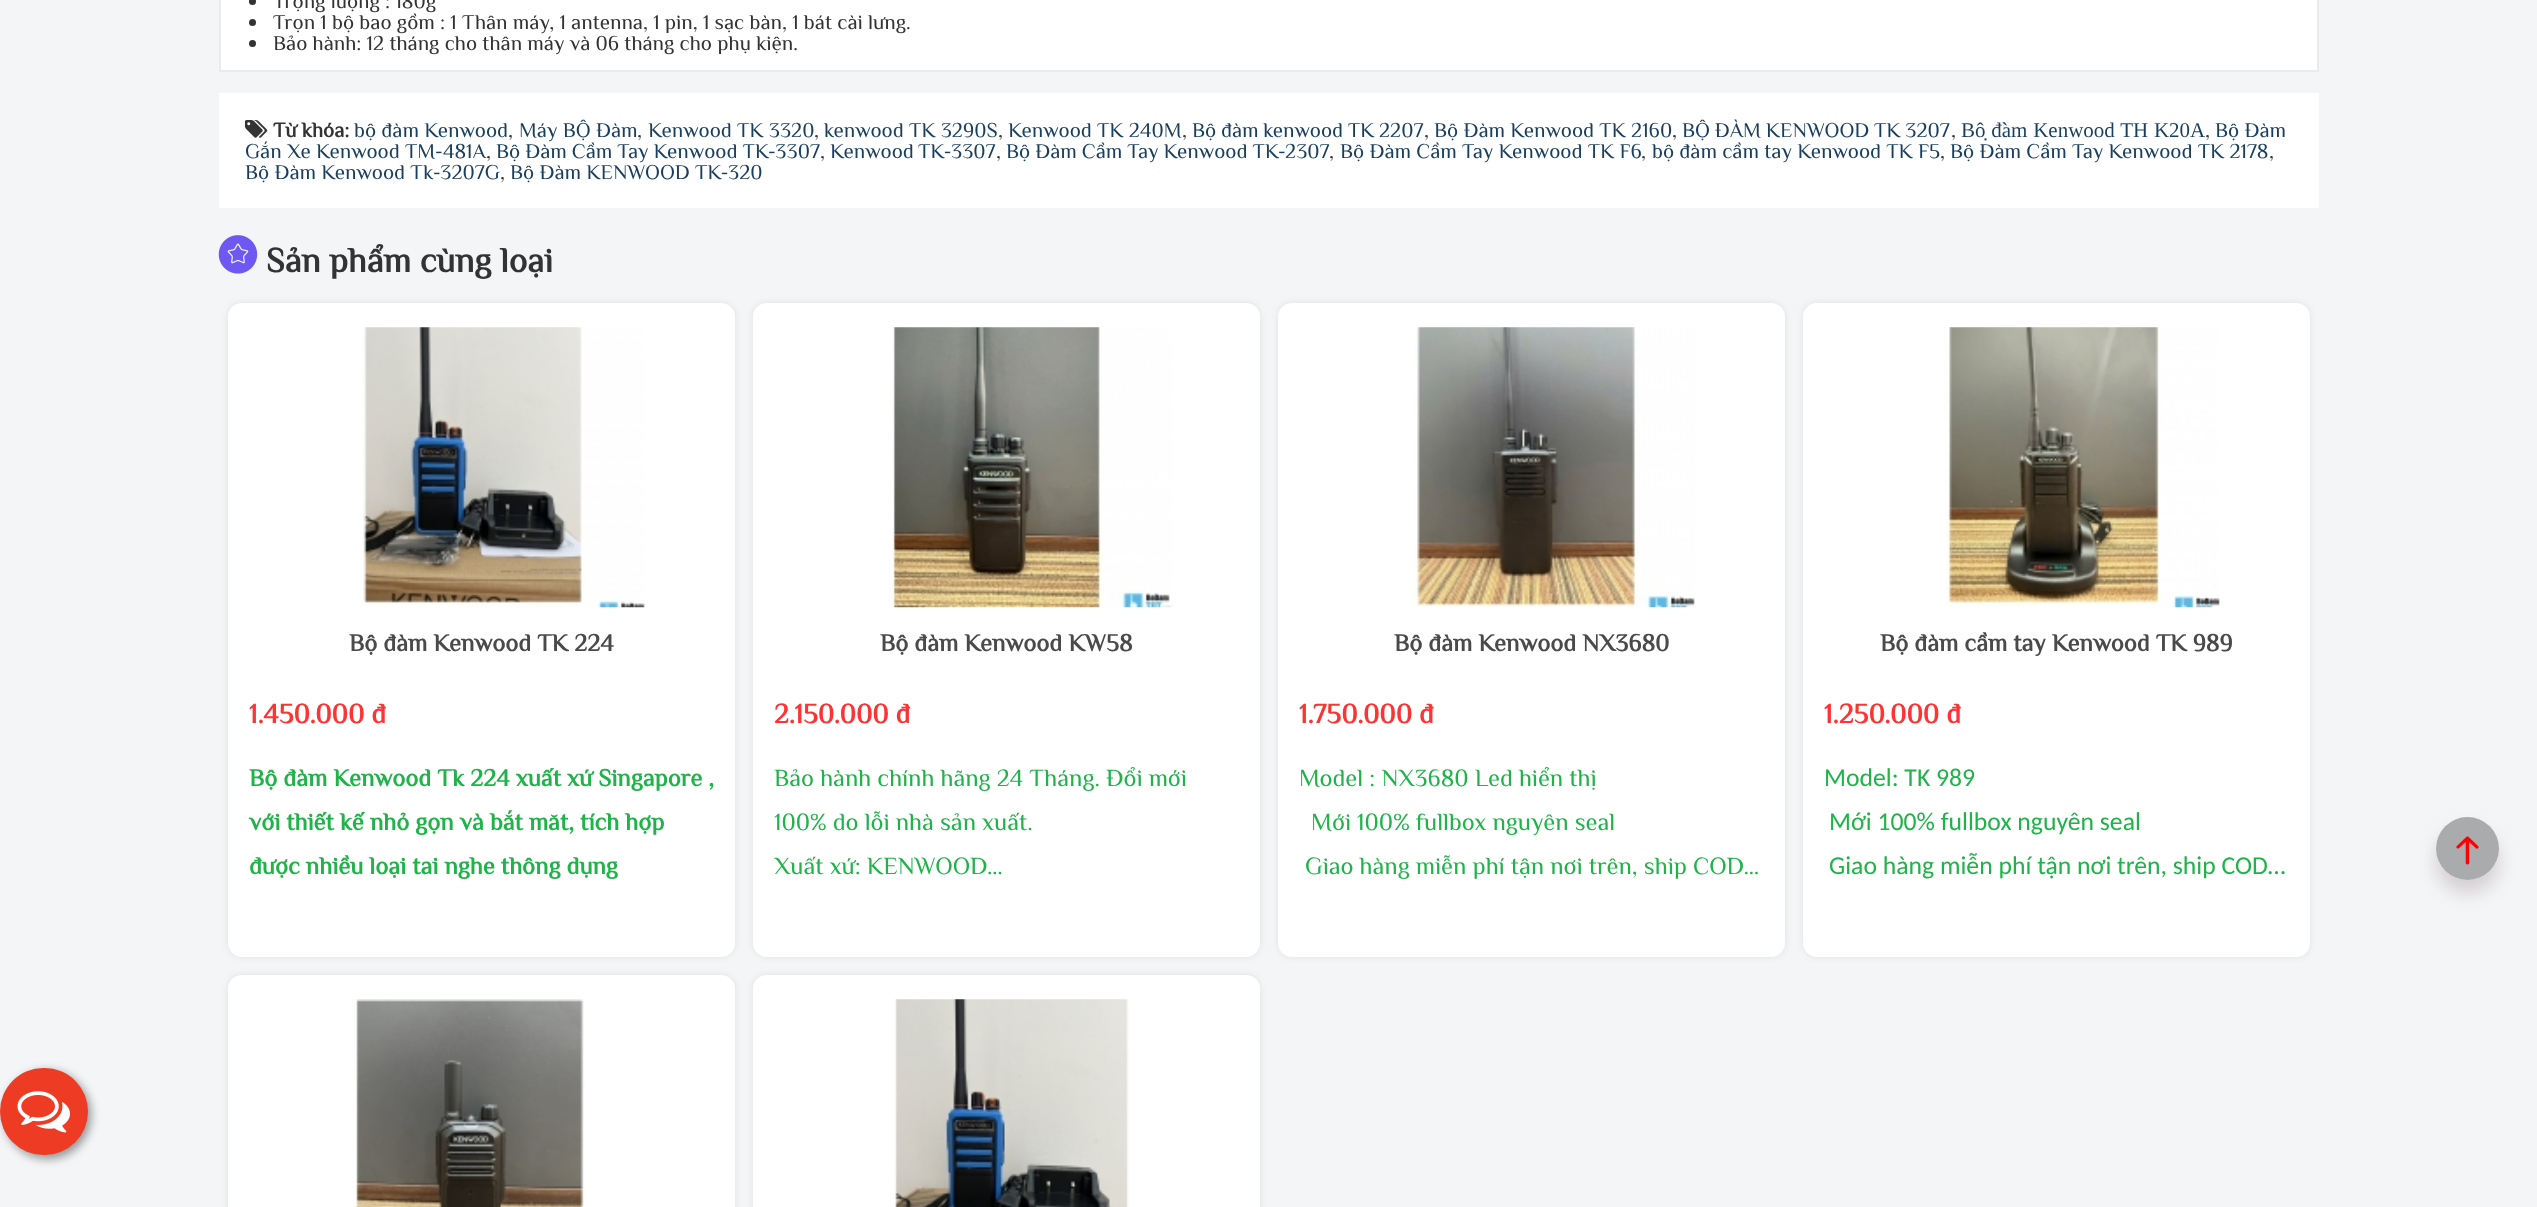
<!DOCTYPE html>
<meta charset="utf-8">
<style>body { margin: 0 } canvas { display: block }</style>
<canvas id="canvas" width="2537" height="1207"></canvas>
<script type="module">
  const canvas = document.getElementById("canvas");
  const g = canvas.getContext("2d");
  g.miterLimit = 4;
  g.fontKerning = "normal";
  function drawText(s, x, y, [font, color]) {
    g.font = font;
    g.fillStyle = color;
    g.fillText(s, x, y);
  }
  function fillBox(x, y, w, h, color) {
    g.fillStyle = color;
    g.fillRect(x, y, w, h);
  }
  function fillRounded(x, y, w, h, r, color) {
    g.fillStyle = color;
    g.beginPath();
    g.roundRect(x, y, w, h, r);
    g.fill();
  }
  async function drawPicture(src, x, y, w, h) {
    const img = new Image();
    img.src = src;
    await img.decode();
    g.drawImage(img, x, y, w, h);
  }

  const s1 = ["21px Philosopher", "#333333"];
  const s2 = ["bold 21px Philosopher", "#333333"];
  const s3 = ["21px Philosopher", "#1A3F5E"];
  const s4 = ["21px Liberation Serif", "#1A3F5E"];
  const s5 = ["bold 35px Philosopher", "#333333"];
  const s6 = ["bold 24.5px Philosopher", "#4A4A4A"];
  const s7 = ["bold 28px Philosopher", "#FE3434"];
  const s8 = ["bold 24.5px Philosopher", "#1FB349"];
  const s9 = ["24.5px Philosopher", "#1FB349"];
  const s10 = ["25.7px Carlito", "#1FB349"];

  fillBox(0, 0, 2537, 1207, "#F3F5F7");
  g.fillStyle = "#FFFFFF";
  g.beginPath();
  g.rect(220, -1, 2098, 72);
  g.fill();
  g.strokeStyle = "#EBEBEB";
  g.lineWidth = 2;
  g.stroke();
  g.fillStyle = "#333333";
  g.beginPath();
  g.arc(252.5, 1.5, 3.5, 0, Math.PI * 2);
  g.fill();
  drawText("Trọng lượng : 180g", 273, 8, s1);
  g.beginPath();
  g.arc(252.5, 22.5, 3.5, 0, Math.PI * 2);
  g.fill();
  drawText("Trọn 1 bộ bao gồm : 1 Thân máy, 1 antenna, 1 pin, 1 sạc bàn, 1 bát cài lưng.", 273, 29, s1);
  g.beginPath();
  g.arc(252.5, 43.5, 3.5, 0, Math.PI * 2);
  g.fill();
  drawText("Bảo hành: 12 tháng cho thân máy và 06 tháng cho phụ kiện.", 273, 50, s1);
  fillBox(219, 93, 2100, 115, "#FFFFFF");
  await drawPicture("pic1.png", 245, 120, 23, 18);
  drawText("Từ khóa:", 273, 137, s2);
  drawText("bộ đàm Kenwood", 354, 137, s3);
  drawText(",", 508, 137, s1);
  drawText("Máy BỘ Đàm", 519, 137, s3);
  drawText(",", 637, 137, s1);
  drawText("Kenwood TK 3320", 648, 137, s3);
  drawText(",", 814, 137, s1);
  drawText("kenwood TK 3290S", 824, 137, s3);
  drawText(",", 998, 137, s1);
  drawText("Kenwood TK 240M", 1008, 137, s3);
  drawText(",", 1182, 137, s1);
  g.wordSpacing = "-0.5px";
  drawText("Bộ đàm kenwood TK 2207", 1192, 137, s3);
  g.wordSpacing = "0px";
  drawText(",", 1424, 137, s1);
  drawText("Bộ Đàm Kenwood TK 2160", 1434, 137, s3);
  drawText(",", 1672, 137, s1);
  g.wordSpacing = "-0.5px";
  drawText("BỘ ĐÀM KENWOOD TK 3207", 1682, 137, s3);
  g.wordSpacing = "0px";
  drawText(",", 1951, 137, s1);
  g.wordSpacing = "0.5px";
  drawText("Bộ đàm Kenwood TH K20A", 1961, 137, s4);
  g.wordSpacing = "0px";
  drawText(",", 2205, 137, s1);
  drawText("Bộ Đàm", 2215, 137, s3);
  drawText("Gắn Xe Kenwood TM-481A", 245, 158, s3);
  drawText(",", 486, 158, s1);
  g.wordSpacing = "-0.25px";
  drawText("Bộ Đàm Cầm Tay Kenwood TK-3307", 496, 158, s3);
  g.wordSpacing = "0px";
  drawText(",", 820, 158, s1);
  g.wordSpacing = "-1px";
  drawText("Kenwood TK-3307", 830, 158, s3);
  g.wordSpacing = "0px";
  drawText(",", 996, 158, s1);
  g.wordSpacing = "-0.25px";
  drawText("Bộ Đàm Cầm Tay Kenwood TK-2307", 1006, 158, s3);
  g.wordSpacing = "0px";
  drawText(",", 1329, 158, s1);
  drawText("Bộ Đàm Cầm Tay Kenwood TK F6", 1340, 158, s3);
  drawText(",", 1641, 158, s1);
  drawText("bộ đàm cầm tay Kenwood TK F5", 1652, 158, s3);
  drawText(",", 1940, 158, s1);
  drawText("Bộ Đàm Cầm Tay Kenwood TK 2178", 1950, 158, s3);
  drawText(",", 2269, 158, s1);
  drawText("Bộ Đàm Kenwood Tk-3207G", 245, 179, s3);
  drawText(",", 500, 179, s1);
  drawText("Bộ Đàm KENWOOD TK-320", 510, 179, s3);
  await drawPicture("pic2.png", 218, 235, 40, 39);
  drawText("Sản phẩm cùng loại", 266, 272, s5);
  g.fillStyle = "rgba(0, 0, 0, 0.08)";
  g.filter = "blur(3.5px)";
  g.beginPath();
  g.roundRect(228, 303, 507, 654, 14);
  g.fill();
  g.filter = "none";
  fillRounded(228, 303, 507, 654, 14, "#FFFFFF");
  await drawPicture("pic3.png", 362, 327, 283, 281);
  drawText("Bộ đàm Kenwood TK 224", 349, 651, s6);
  drawText("1.450.000 đ", 249, 723, s7);
  drawText("Bộ đàm Kenwood Tk 224 xuất xứ Singapore ,", 249, 786, s8);
  drawText("với thiết kế nhỏ gọn và bắt măt, tích hợp", 249, 830, s8);
  drawText("được nhiều loại tai nghe thông dụng", 249, 874, s8);
  g.fillStyle = "rgba(0, 0, 0, 0.08)";
  g.filter = "blur(3.5px)";
  g.beginPath();
  g.roundRect(753, 303, 507, 654, 14);
  g.fill();
  g.filter = "none";
  fillRounded(753, 303, 507, 654, 14, "#FFFFFF");
  await drawPicture("pic4.png", 892, 327, 281, 281);
  drawText("Bộ đàm Kenwood KW58", 880, 651, s6);
  drawText("2.150.000 đ", 774, 723, s7);
  drawText("Bảo hành chính hãng 24 Tháng. Đổi mới", 774, 786, s9);
  drawText("100% do lỗi nhà sản xuất.", 774, 830, s9);
  drawText("Xuất xứ: KENWOOD…", 774, 874, s9);
  g.fillStyle = "rgba(0, 0, 0, 0.08)";
  g.filter = "blur(3.5px)";
  g.beginPath();
  g.roundRect(1278, 303, 507, 654, 14);
  g.fill();
  g.filter = "none";
  fillRounded(1278, 303, 507, 654, 14, "#FFFFFF");
  await drawPicture("pic5.png", 1414, 327, 281, 281);
  drawText("Bộ đàm Kenwood NX3680", 1394, 651, s6);
  drawText("1.750.000 đ", 1299, 723, s7);
  drawText("Model : NX3680 Led hiển thị", 1299, 786, s9);
  drawText("Mới 100% fullbox nguyên seal", 1311, 830, s9);
  drawText("Giao hàng miễn phí tận nơi trên, ship COD…", 1305, 874, s9);
  g.fillStyle = "rgba(0, 0, 0, 0.08)";
  g.filter = "blur(3.5px)";
  g.beginPath();
  g.roundRect(1803, 303, 507, 654, 14);
  g.fill();
  g.filter = "none";
  fillRounded(1803, 303, 507, 654, 14, "#FFFFFF");
  await drawPicture("pic6.png", 1945, 327, 275, 281);
  drawText("Bộ đàm cầm tay Kenwood TK 989", 1880, 651, s6);
  drawText("1.250.000 đ", 1824, 723, s7);
  drawText("Model: TK 989", 1824, 786, s10);
  drawText("Mới 100% fullbox nguyên seal", 1829, 830, s10);
  drawText("Giao hàng miễn phí tận nơi trên, ship COD…", 1829, 874, s10);
  g.fillStyle = "rgba(0, 0, 0, 0.08)";
  g.filter = "blur(3.5px)";
  g.beginPath();
  g.roundRect(228, 975, 507, 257, 14);
  g.fill();
  g.filter = "none";
  fillRounded(228, 975, 507, 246, 14, "#FFFFFF");
  await drawPicture("pic7.png", 353, 999, 232, 208);
  g.fillStyle = "rgba(0, 0, 0, 0.08)";
  g.filter = "blur(3.5px)";
  g.beginPath();
  g.roundRect(753, 975, 507, 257, 14);
  g.fill();
  g.filter = "none";
  fillRounded(753, 975, 507, 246, 14, "#FFFFFF");
  await drawPicture("pic8.png", 893, 999, 236, 208);
  g.save();
  g.beginPath();
  g.moveTo(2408, 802);
  g.lineTo(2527, 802);
  g.lineTo(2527, 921);
  g.lineTo(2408, 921);
  g.closePath();
  g.moveTo(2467.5, 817);
  g.bezierCurveTo(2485, 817, 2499, 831, 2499, 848.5);
  g.bezierCurveTo(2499, 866, 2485, 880, 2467.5, 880);
  g.bezierCurveTo(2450, 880, 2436, 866, 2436, 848.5);
  g.bezierCurveTo(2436, 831, 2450, 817, 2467.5, 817);
  g.closePath();
  g.clip("evenodd");
  g.fillStyle = "rgba(106, 65, 65, 0.21)";
  g.filter = "blur(9px)";
  g.beginPath();
  g.roundRect(2436, 830, 63, 63, 31.5);
  g.fill();
  g.filter = "none";
  g.restore();
  g.fillStyle = "rgba(0, 0, 0, 0.3)";
  g.beginPath();
  g.arc(2467.5, 848.5, 31.5, 0, Math.PI * 2);
  g.fill();
  await drawPicture("pic9.png", 2456, 836, 23, 29);
  g.fillStyle = "rgba(0, 0, 0, 0.4)";
  g.filter = "blur(5px)";
  g.beginPath();
  g.roundRect(4, 1071, 87, 88, 43.5);
  g.fill();
  g.filter = "none";
  fillRounded(0, 1068, 88, 87, 43.5, "#EE3B24");
  await drawPicture("pic10.png", 17, 1091, 53, 42);
</script>
